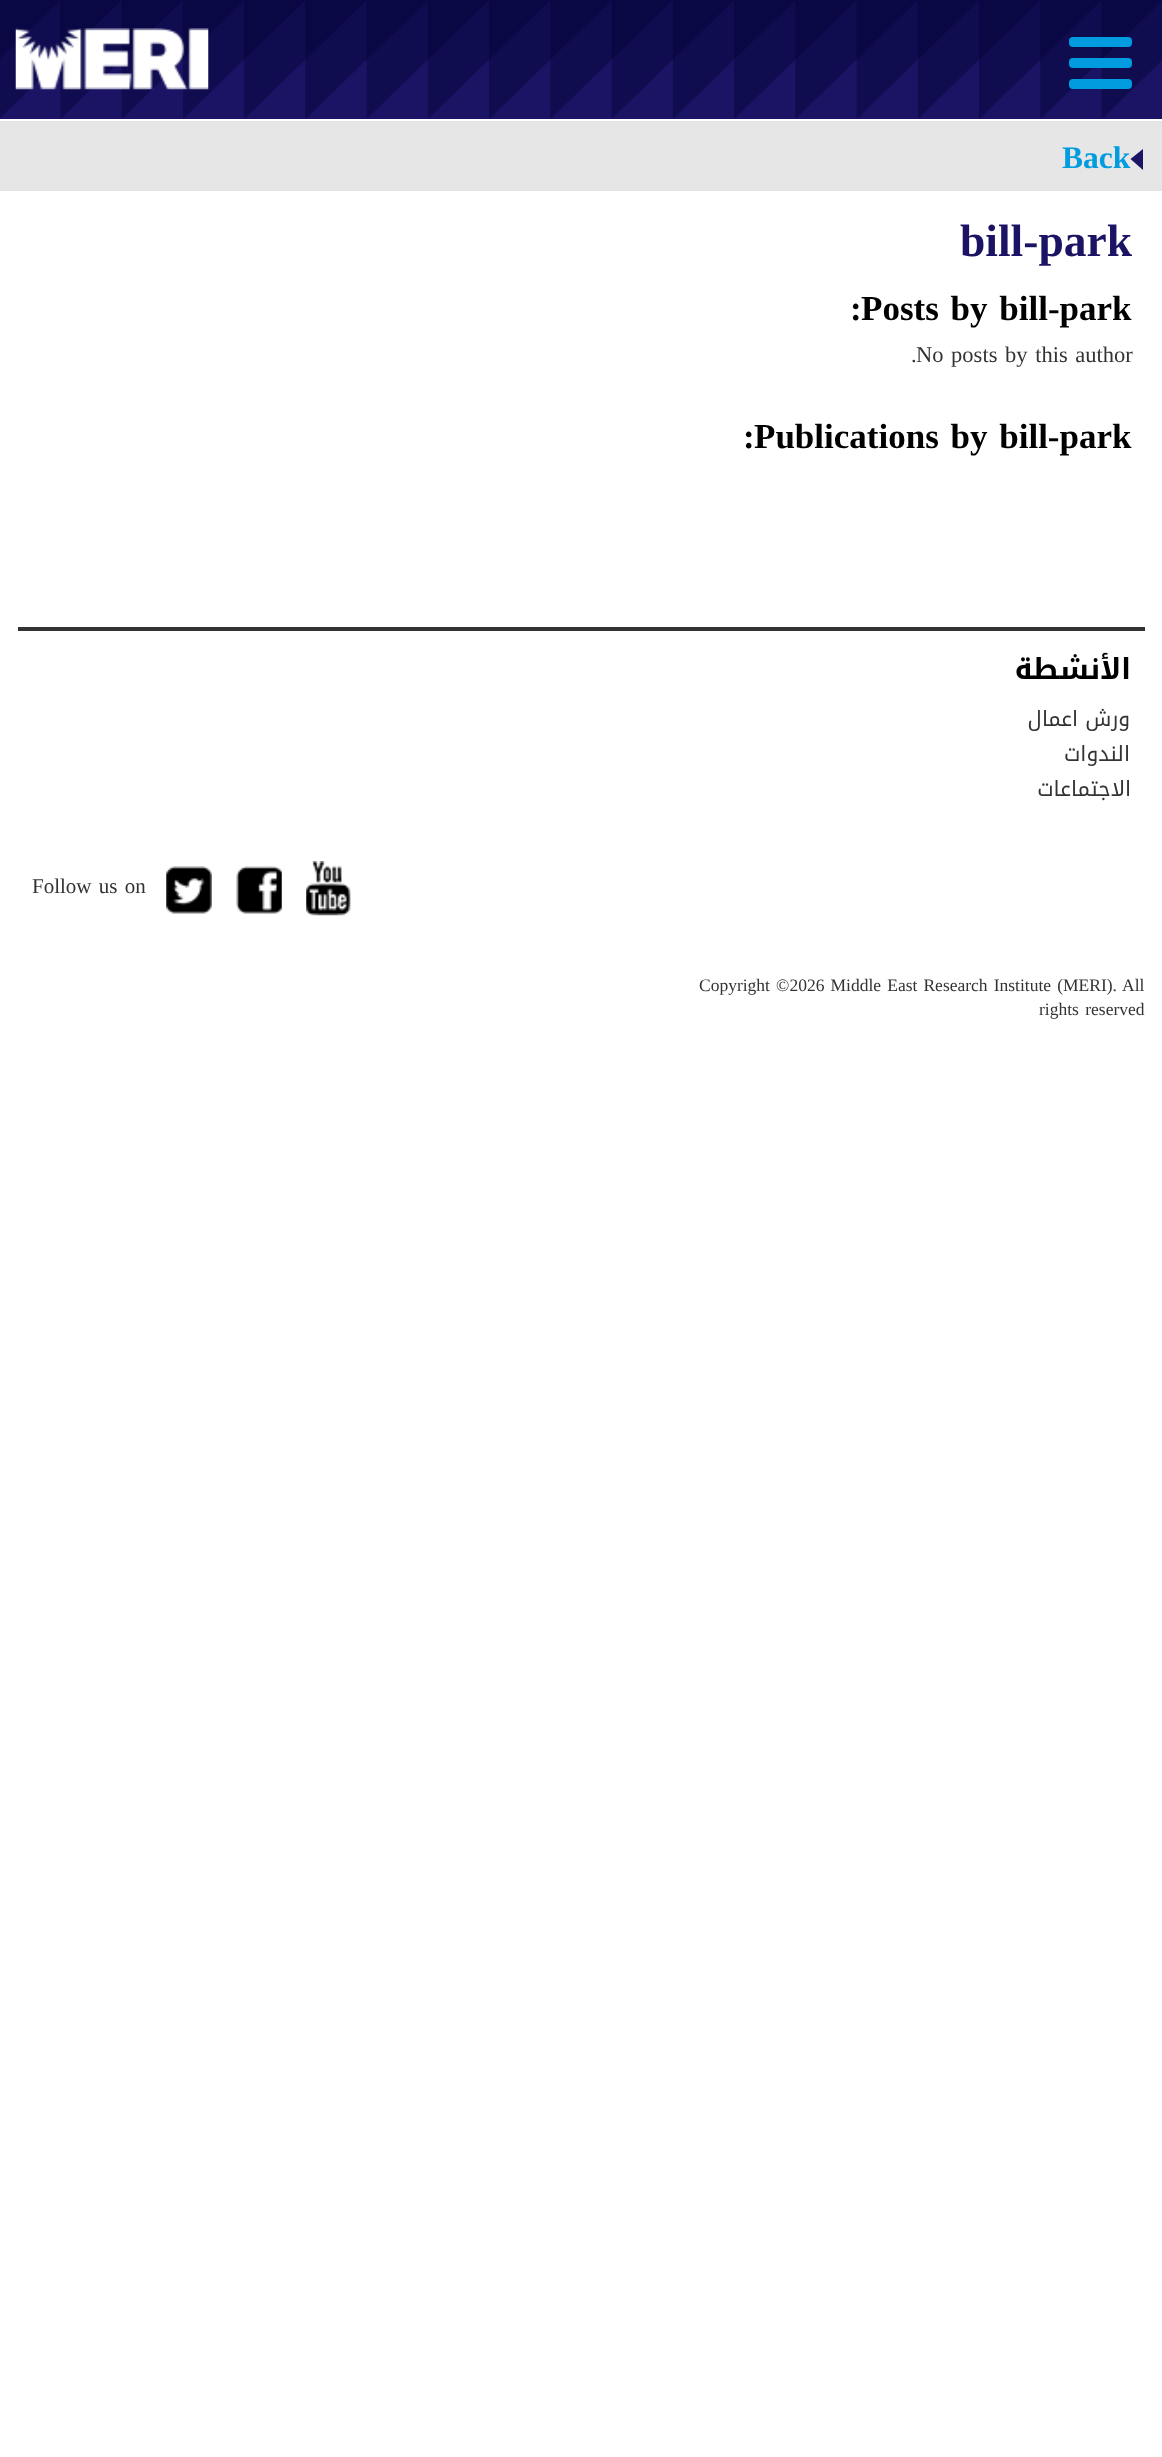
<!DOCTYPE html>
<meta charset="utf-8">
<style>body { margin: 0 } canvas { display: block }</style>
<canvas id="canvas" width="1162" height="2457"></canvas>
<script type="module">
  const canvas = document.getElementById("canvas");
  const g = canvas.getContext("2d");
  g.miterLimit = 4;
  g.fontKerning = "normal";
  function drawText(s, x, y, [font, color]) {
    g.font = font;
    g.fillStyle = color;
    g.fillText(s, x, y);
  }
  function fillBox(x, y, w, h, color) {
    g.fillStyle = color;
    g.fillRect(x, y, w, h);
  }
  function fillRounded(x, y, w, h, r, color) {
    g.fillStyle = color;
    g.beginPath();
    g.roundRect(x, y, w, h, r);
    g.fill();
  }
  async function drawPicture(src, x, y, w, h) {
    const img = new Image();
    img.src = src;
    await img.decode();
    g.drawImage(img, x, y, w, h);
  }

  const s1 = ["bold 31.5px Liberation Serif", "#009CDF"];
  const s2 = ["bold 45.5px Liberation Serif", "#1B1464"];
  const s3 = ["bold 35px Liberation Serif", "#000000"];
  const s4 = ["22.5px Liberation Serif", "#333333"];
  const s5 = ["bold 29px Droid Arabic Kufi", "#000000"];
  const s6 = ["21px Droid Arabic Kufi", "#333333"];
  const s7 = ["21px Liberation Serif", "#333333"];
  const s8 = ["17.5px Liberation Serif", "#333333"];

  fillBox(0, 0, 1162, 2457, "#FFFFFF");
  fillBox(0, 0, 1162, 119, "#1B1464");
  await drawPicture("pic1.png", 0, 0, 1162, 119);
  await drawPicture("pic2.png", 15, 28, 194, 62);
  fillRounded(1069, 37, 63, 10, 4, "#009CDF");
  fillRounded(1069, 58, 63, 10, 4, "#009CDF");
  fillRounded(1069, 79, 63, 10, 4, "#009CDF");
  fillBox(0, 121, 1162, 70, "#E6E6E6");
  g.fillStyle = "#1B1464";
  g.beginPath();
  g.moveTo(1143, 149);
  g.lineTo(1143, 170);
  g.lineTo(1130.5, 159);
  g.closePath();
  g.fill();
  drawText("Back", 1062, 168, s1);
  drawText("bill-park", 960, 256, s2);
  drawText(":", 850, 320, s3);
  g.wordSpacing = "3px";
  drawText("Posts by bill-park", 861, 320, s3);
  g.wordSpacing = "0px";
  drawText(".", 911, 362, s4);
  g.wordSpacing = "2px";
  drawText("No posts by this author", 916, 362, s4);
  g.wordSpacing = "0px";
  drawText(":", 743, 448, s3);
  g.wordSpacing = "3px";
  drawText("Publications by bill-park", 754, 448, s3);
  fillBox(18, 627, 1127, 4, "#333333");
  g.wordSpacing = "0px";
  g.direction = "rtl";
  drawText("الأنشطة", 1131, 679, s5);
  drawText("ورش اعمال", 1130, 726, s6);
  drawText("الندوات", 1130, 761, s6);
  drawText("الاجتماعات", 1131, 796, s6);
  g.wordSpacing = "2px";
  g.direction = "ltr";
  drawText("Follow us on", 32, 893, s7);
  await drawPicture("pic3.png", 166, 866, 46, 48);
  await drawPicture("pic4.png", 236, 866, 46, 48);
  await drawPicture("pic5.png", 306, 861, 45, 55);
  g.wordSpacing = "1.75px";
  drawText("Copyright ©2026 Middle East Research Institute (MERI). All", 699, 991, s8);
  g.wordSpacing = "2px";
  drawText("rights reserved", 1039, 1015, s8);
</script>
